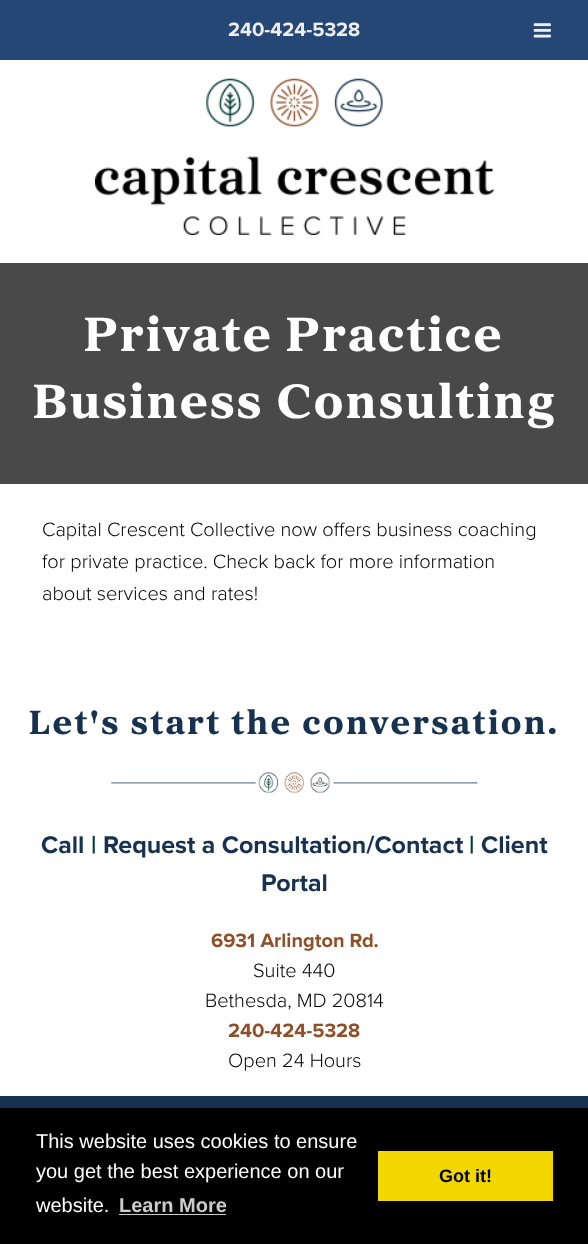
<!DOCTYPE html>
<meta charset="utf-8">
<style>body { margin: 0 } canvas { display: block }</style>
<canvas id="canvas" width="588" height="1244"></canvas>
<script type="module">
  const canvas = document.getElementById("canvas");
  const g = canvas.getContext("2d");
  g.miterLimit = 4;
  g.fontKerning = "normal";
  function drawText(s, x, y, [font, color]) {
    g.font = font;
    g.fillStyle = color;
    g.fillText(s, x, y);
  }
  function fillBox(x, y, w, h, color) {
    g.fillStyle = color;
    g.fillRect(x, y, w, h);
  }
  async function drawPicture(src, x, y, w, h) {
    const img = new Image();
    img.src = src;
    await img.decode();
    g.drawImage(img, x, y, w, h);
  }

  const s1 = ["bold 20px Proxima Nova", "#EEEEEE"];
  const s2 = ["800 50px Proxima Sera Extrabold", "#FFFFFF"];
  const s3 = ["300 20px Proxima Nova", "#000000"];
  const s4 = ["800 35px Proxima Sera Extrabold", "#173251"];
  const s5 = ["bold 25px Proxima Nova", "#173251"];
  const s6 = ["bold 25px Proxima Nova", "#003D34"];
  const s7 = ["bold 20px Proxima Nova", "#8F5029"];
  const s8 = ["20px Liberation Sans", "#FFFFFF"];
  const s9 = ["bold 20px Liberation Sans", "#CCCCCC"];
  const s10 = ["bold 18px Liberation Sans", "#000000"];

  fillBox(0, 0, 588, 1244, "#FFFFFF");
  fillBox(0, 0, 588, 60, "#254775");
  drawText("240-424-5328", 228, 36, s1);
  await drawPicture("pic1.png", 533, 23, 18, 15);
  await drawPicture("pic2.png", 95, 78, 399, 157);
  fillBox(0, 263, 588, 221, "#494949");
  g.letterSpacing = "2.5px";
  drawText("Private Practice", 84, 351, s2);
  drawText("Business Consulting", 33, 418, s2);
  g.letterSpacing = "0px";
  drawText("Capital Crescent Collective now offers business coaching", 42, 536, s3);
  drawText("for private practice. Check back for more information", 42, 568, s3);
  drawText("about services and rates!", 42, 600, s3);
  fillBox(0, 1096, 588, 12, "#173251");
  g.letterSpacing = "2.5px";
  drawText("Let's start the conversation.", 29, 734, s4);
  await drawPicture("pic3.png", 111, 772, 367, 21);
  g.letterSpacing = "0px";
  drawText("Call", 41, 853, s5);
  drawText("|", 91, 853, s6);
  drawText("Request a Consultation/Contact", 103, 853, s5);
  drawText("|", 469, 853, s6);
  drawText("Client", 481, 853, s5);
  drawText("Portal", 261, 891, s5);
  drawText("6931 Arlington Rd.", 211, 947, s7);
  drawText("Suite 440", 253, 977, s3);
  drawText("Bethesda, MD 20814", 205, 1007, s3);
  drawText("240-424-5328", 228, 1037, s7);
  drawText("Open 24 Hours", 228, 1067, s3);
  fillBox(0, 1108, 588, 136, "#000000");
  drawText("This website uses cookies to ensure", 36, 1148, s8);
  drawText("you get the best experience on our", 36, 1178, s8);
  drawText("website.", 36, 1212, s8);
  drawText("Learn More", 119, 1212, s9);
  fillBox(119, 1214, 107, 1, "#CCCCCC");
  fillBox(378, 1151, 175, 50, "#F1D600");
  drawText("Got it!", 439, 1182, s10);
</script>
